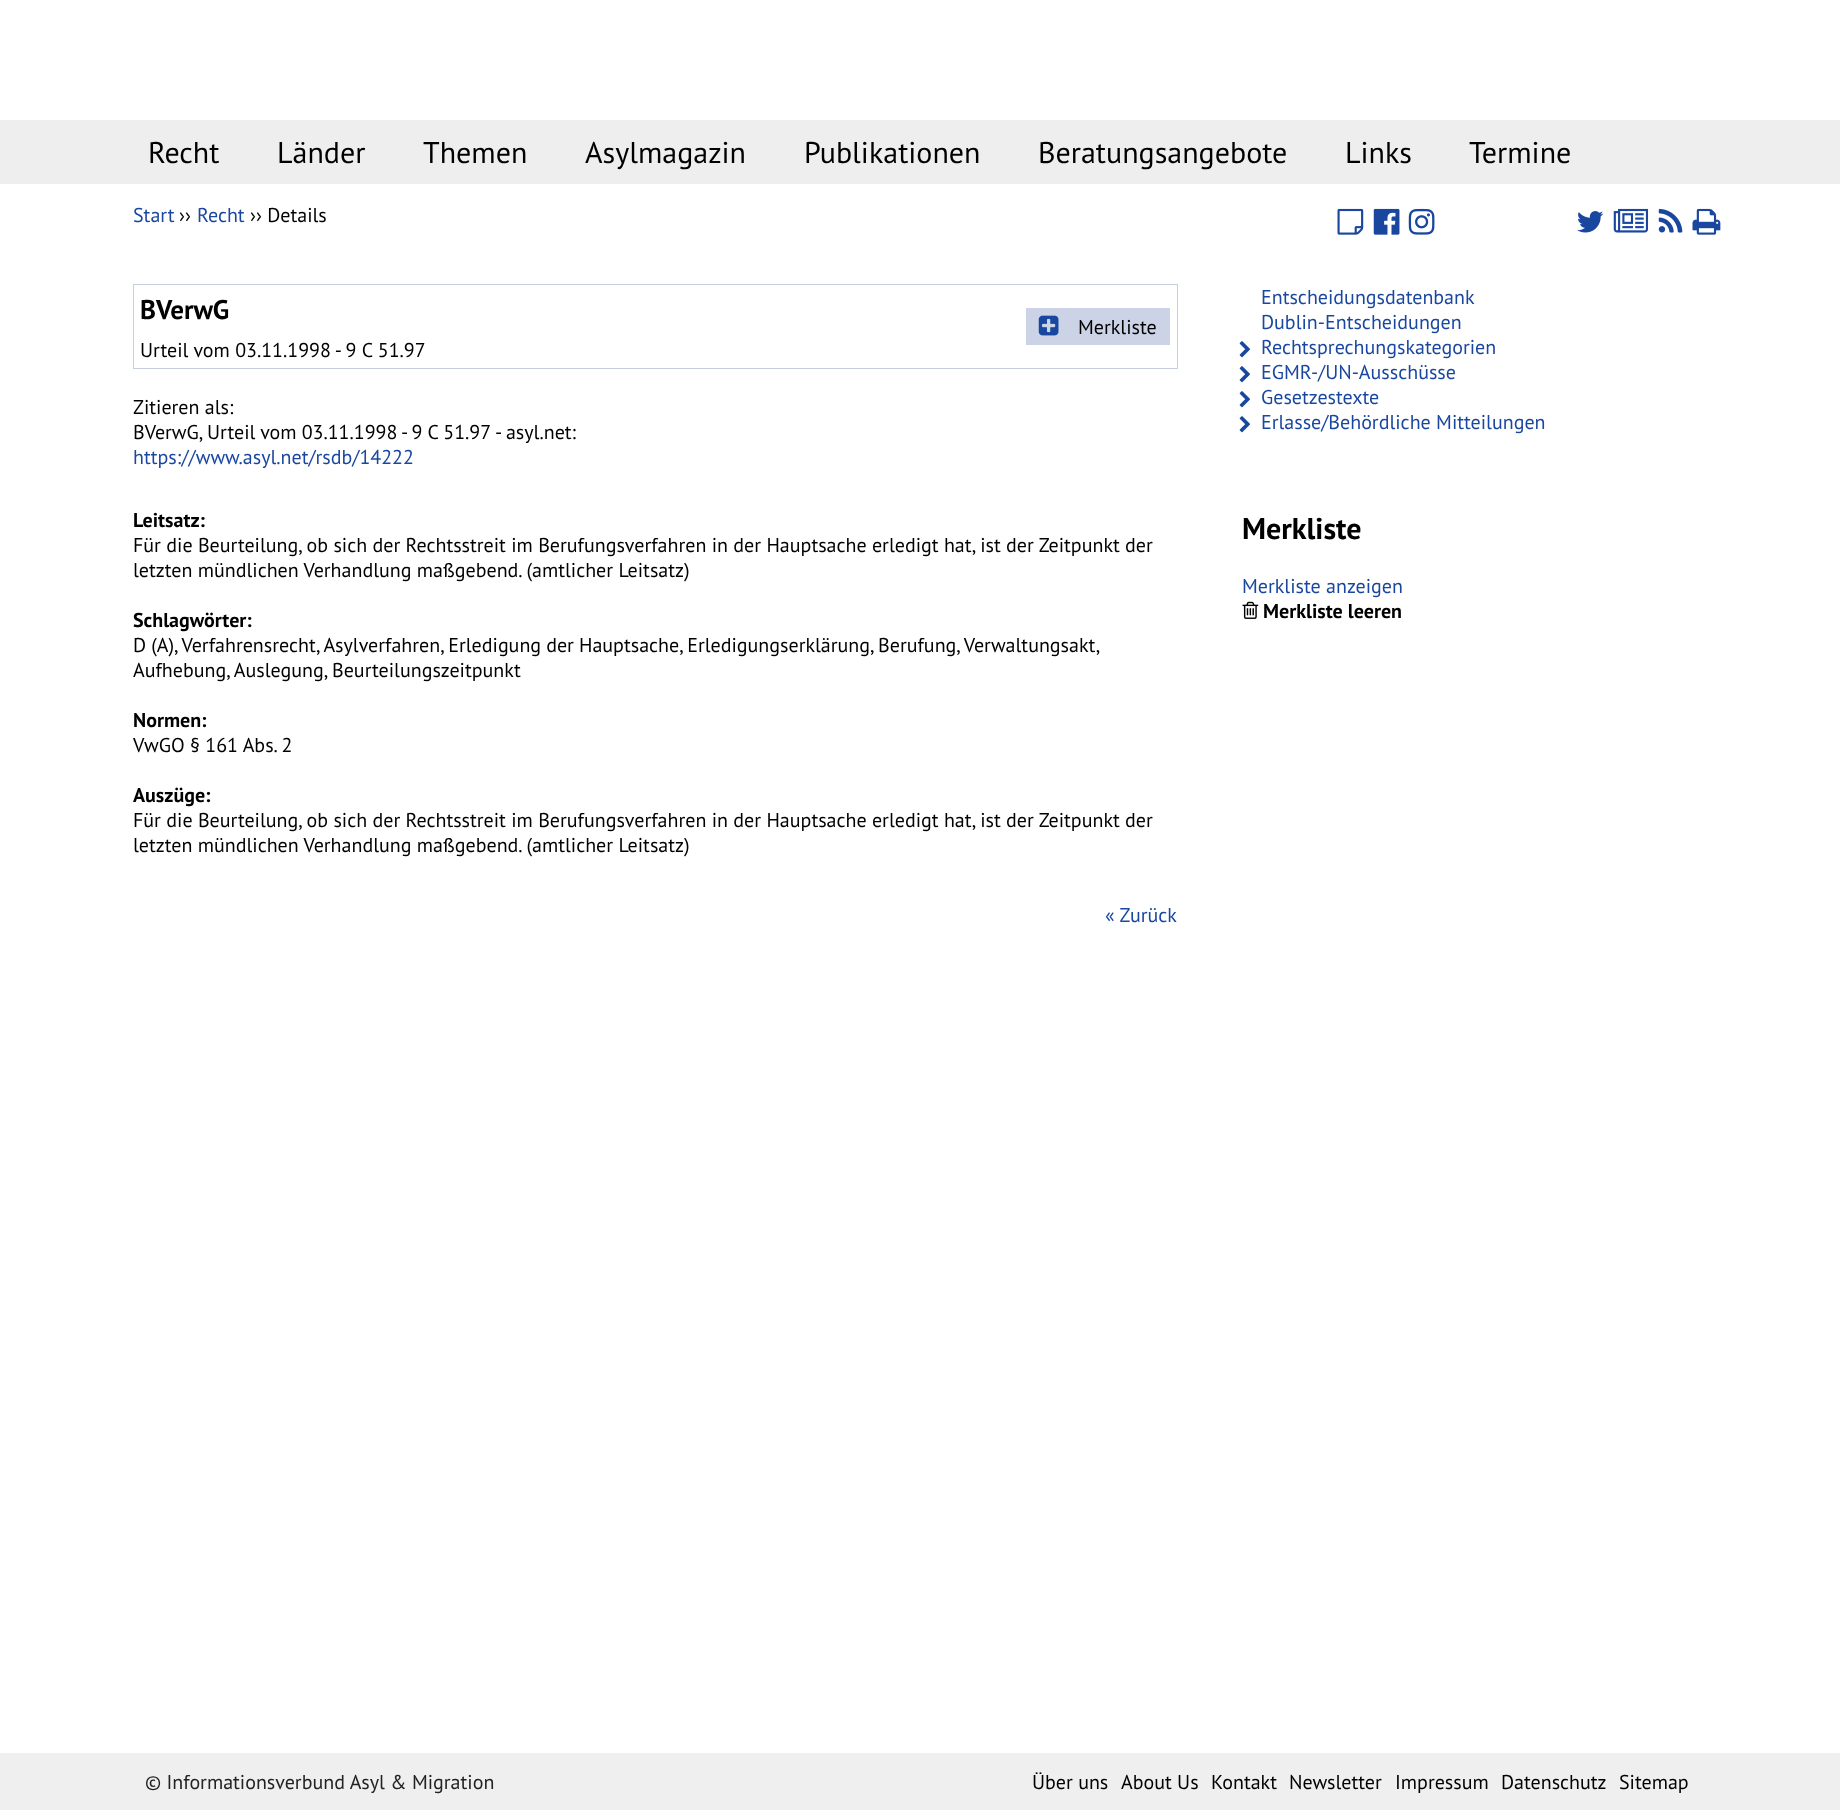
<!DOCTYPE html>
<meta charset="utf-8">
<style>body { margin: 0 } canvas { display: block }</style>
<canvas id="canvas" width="1840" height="1810"></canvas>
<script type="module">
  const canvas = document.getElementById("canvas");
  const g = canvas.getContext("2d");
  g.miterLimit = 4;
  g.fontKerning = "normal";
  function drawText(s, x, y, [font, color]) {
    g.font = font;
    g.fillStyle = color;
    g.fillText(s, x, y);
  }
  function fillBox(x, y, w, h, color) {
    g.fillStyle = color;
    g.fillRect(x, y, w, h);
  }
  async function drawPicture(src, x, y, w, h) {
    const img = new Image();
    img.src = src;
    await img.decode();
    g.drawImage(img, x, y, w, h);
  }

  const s1 = ["30px PT Sans", "#000000"];
  const s2 = ["20px PT Sans", "#19479F"];
  const s3 = ["20px PT Sans", "#000000"];
  const s4 = ["bold 27px PT Sans", "#000000"];
  const s5 = ["bold 20px PT Sans", "#000000"];
  const s6 = ["bold 30px PT Sans", "#000000"];
  const s7 = ["20px PT Sans", "#222222"];

  fillBox(0, 0, 1840, 1810, "#FFFFFF");
  fillBox(0, 120, 1840, 64, "#EEEEEE");
  drawText("Recht", 148, 163, s1);
  drawText("Länder", 277, 163, s1);
  drawText("Themen", 423, 163, s1);
  drawText("Asylmagazin", 585, 163, s1);
  drawText("Publikationen", 804, 163, s1);
  drawText("Beratungsangebote", 1038, 163, s1);
  drawText("Links", 1345, 163, s1);
  drawText("Termine", 1469, 163, s1);
  drawText("Start", 133, 222, s2);
  drawText("››", 179, 222, s3);
  drawText("Recht", 197, 222, s2);
  drawText("›› Details", 250, 222, s3);
  await drawPicture("pic1.png", 1337, 208, 27, 27);
  await drawPicture("pic2.png", 1373, 208, 27, 27);
  await drawPicture("pic3.png", 1408, 208, 27, 27);
  await drawPicture("pic4.png", 1577, 211, 27, 22);
  await drawPicture("pic5.png", 1613, 208, 36, 25);
  await drawPicture("pic6.png", 1658, 208, 25, 25);
  await drawPicture("pic7.png", 1692, 208, 29, 27);
  g.strokeStyle = "#C7CEE0";
  g.strokeRect(133.5, 284.5, 1044, 84);
  drawText("BVerwG", 140, 319, s4);
  drawText("Urteil vom 03.11.1998 - 9 C 51.97", 140, 357, s3);
  fillBox(1026, 308, 144, 37, "#CCD3E6");
  await drawPicture("pic8.png", 1038, 315, 21, 21);
  drawText("Merkliste", 1078, 334, s3);
  drawText("Zitieren als:", 133, 414, s3);
  drawText("BVerwG,", 133, 439, s3);
  g.wordSpacing = "-0.25px";
  drawText("Urteil vom 03.11.1998 - 9 C 51.97", 207, 439, s3);
  g.wordSpacing = "0px";
  drawText("- asyl.net:", 495, 439, s3);
  drawText("https://www.asyl.net/rsdb/14222", 133, 464, s2);
  drawText("Leitsatz:", 133, 527, s5);
  drawText("Für die Beurteilung, ob sich der Rechtsstreit im Berufungsverfahren in der Hauptsache erledigt hat, ist der Zeitpunkt der", 133, 552, s3);
  drawText("letzten mündlichen Verhandlung maßgebend. (amtlicher Leitsatz)", 133, 577, s3);
  drawText("Schlagwörter:", 133, 627, s5);
  g.wordSpacing = "-0.25px";
  drawText("D (A), Verfahrensrecht, Asylverfahren, Erledigung der Hauptsache, Erledigungserklärung, Berufung, Verwaltungsakt,", 133, 652, s3);
  g.wordSpacing = "0px";
  drawText("Aufhebung, Auslegung, Beurteilungszeitpunkt", 133, 677, s3);
  drawText("Normen:", 133, 727, s5);
  drawText("VwGO § 161 Abs. 2", 133, 752, s3);
  drawText("Auszüge:", 133, 802, s5);
  drawText("Für die Beurteilung, ob sich der Rechtsstreit im Berufungsverfahren in der Hauptsache erledigt hat, ist der Zeitpunkt der", 133, 827, s3);
  drawText("letzten mündlichen Verhandlung maßgebend. (amtlicher Leitsatz)", 133, 852, s3);
  drawText("« Zurück", 1105, 922, s2);
  drawText("Entscheidungsdatenbank", 1261, 304, s2);
  drawText("Dublin-Entscheidungen", 1261, 329, s2);
  await drawPicture("pic9.png", 1239, 341, 11, 17);
  drawText("Rechtsprechungskategorien", 1261, 354, s2);
  await drawPicture("pic9.png", 1239, 366, 11, 17);
  drawText("EGMR-/UN-Ausschüsse", 1261, 379, s2);
  await drawPicture("pic9.png", 1239, 391, 11, 17);
  drawText("Gesetzestexte", 1261, 404, s2);
  await drawPicture("pic9.png", 1239, 416, 11, 17);
  drawText("Erlasse/Behördliche Mitteilungen", 1261, 429, s2);
  drawText("Merkliste", 1242, 539, s6);
  drawText("Merkliste anzeigen", 1242, 593, s2);
  await drawPicture("pic10.png", 1242, 601, 17, 18);
  drawText("Merkliste leeren", 1263, 618, s5);
  fillBox(0, 1753, 1840, 57, "#EFEFEF");
  drawText("© Informationsverbund Asyl & Migration", 145, 1789, s7);
  drawText("Über uns", 1032, 1789, s3);
  drawText("About Us", 1121, 1789, s3);
  drawText("Kontakt", 1211, 1789, s3);
  drawText("Newsletter", 1289, 1789, s3);
  drawText("Impressum", 1395, 1789, s3);
  drawText("Datenschutz", 1501, 1789, s3);
  drawText("Sitemap", 1619, 1789, s3);
</script>
